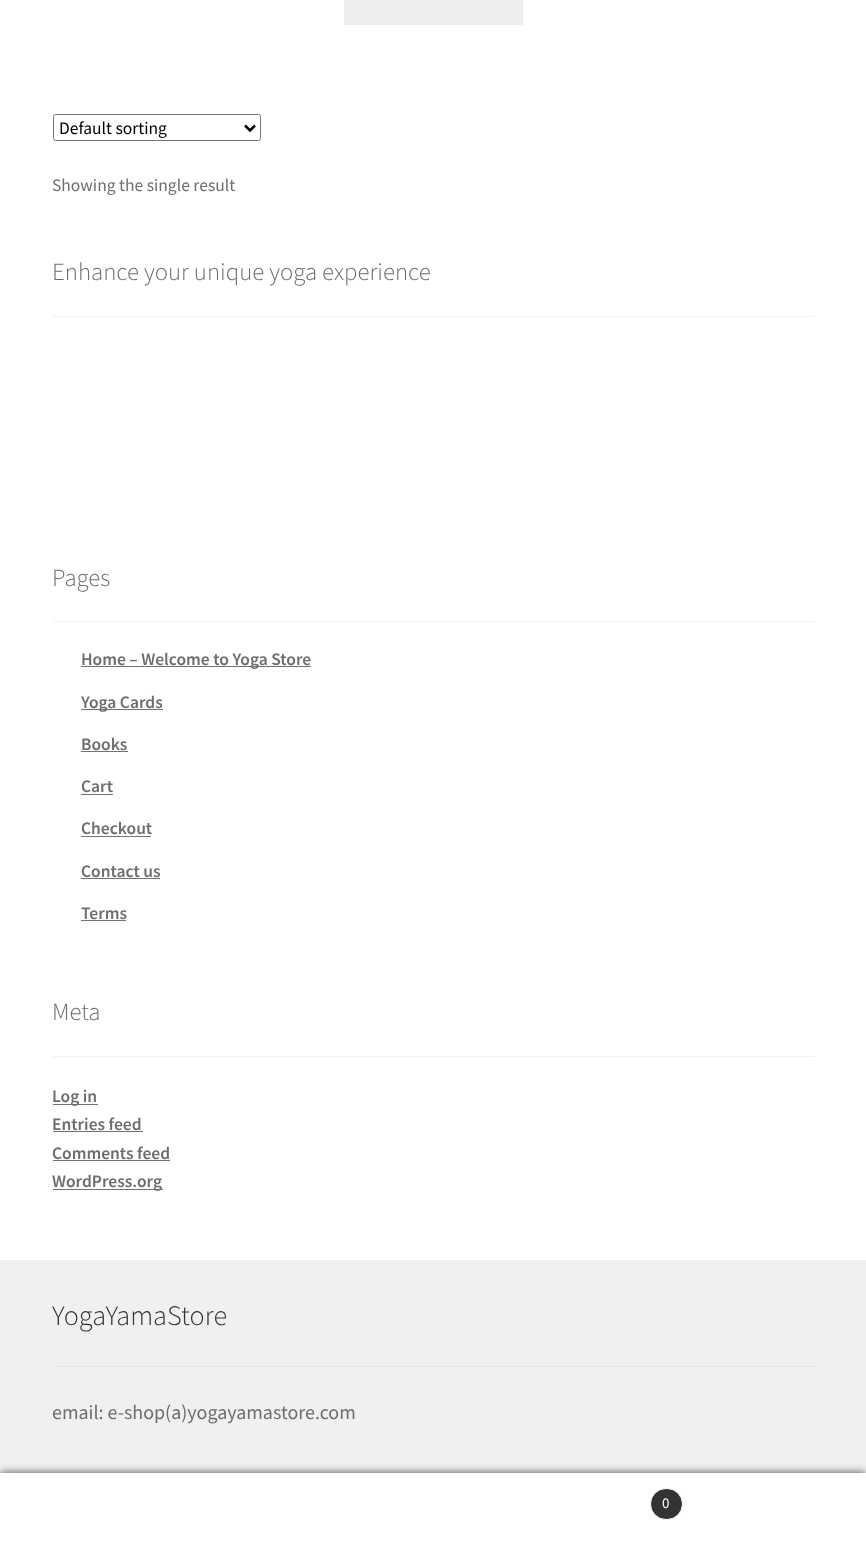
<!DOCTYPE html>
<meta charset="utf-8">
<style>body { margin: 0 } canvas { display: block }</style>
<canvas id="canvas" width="866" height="1558"></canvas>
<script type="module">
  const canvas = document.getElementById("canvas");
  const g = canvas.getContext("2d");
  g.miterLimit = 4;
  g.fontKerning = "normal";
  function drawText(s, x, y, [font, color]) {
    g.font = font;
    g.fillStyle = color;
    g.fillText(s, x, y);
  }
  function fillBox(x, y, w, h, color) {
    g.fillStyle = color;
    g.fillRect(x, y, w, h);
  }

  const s1 = ["17.5px Source Sans Pro", "#000000"];
  const s2 = ["17.5px Source Sans Pro", "#6D6D6D"];
  const s3 = ["300 24.75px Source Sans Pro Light", "#6D6D6D"];
  const s4 = ["600 17.5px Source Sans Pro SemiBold", "#6D6D6D"];
  const s5 = ["300 28.25px Source Sans Pro Light", "#333333"];
  const s6 = ["20px Source Sans Pro", "#6D6D6D"];
  const s7 = ["15px Source Sans Pro", "#FFFFFF"];

  fillBox(0, 0, 866, 1558, "#FFFFFF");
  fillBox(344, 0, 179, 25, "#EEEEEE");
  g.beginPath();
  g.roundRect(53.5, 114.5, 207, 26, 2);
  g.strokeStyle = "#767676";
  g.stroke();
  g.beginPath();
  g.moveTo(245, 125.5);
  g.lineTo(250, 130.5);
  g.lineTo(255, 125.5);
  g.strokeStyle = "#000000";
  g.lineWidth = 2.5;
  g.stroke();
  drawText("Default sorting", 59, 134, s1);
  drawText("Showing the single result", 52, 191, s2);
  fillBox(53, 316, 761, 1, "#F2F2F2");
  drawText("Enhance your unique yoga experience", 52, 280, s3);
  fillBox(53, 621, 761, 1, "#F2F2F2");
  drawText("Pages", 52, 586, s3);
  fillBox(81, 666, 230, 1, "#727272");
  drawText("Home – Welcome to Yoga Store", 81, 665, s4);
  fillBox(81, 709, 82, 1, "#727272");
  drawText("Yoga Cards", 81, 708, s4);
  drawText("Books", 81, 750, s4);
  fillBox(81, 751, 47, 1, "#727272");
  drawText("Cart", 81, 792, s4);
  fillBox(81, 794, 32, 1, "#727272");
  drawText("Checkout", 81, 834, s4);
  fillBox(81, 836, 70, 1, "#727272");
  drawText("Contact us", 81, 877, s4);
  fillBox(81, 878, 79, 1, "#727272");
  drawText("Terms", 81, 919, s4);
  fillBox(81, 920, 45, 1, "#727272");
  fillBox(53, 1056, 761, 1, "#F2F2F2");
  drawText("Meta", 52, 1020, s3);
  fillBox(53, 1104, 45, 1, "#727272");
  drawText("Log in", 52, 1102, s4);
  drawText("Entries feed", 52, 1130, s4);
  fillBox(53, 1131, 90, 1, "#727272");
  drawText("Comments feed", 52, 1159, s4);
  fillBox(53, 1160, 117, 1, "#727272");
  fillBox(53, 1189, 110, 1, "#727272");
  drawText("WordPress.org", 52, 1187, s4);
  fillBox(0, 1260, 866, 213, "#F0F0F0");
  fillBox(53, 1366, 761, 1, "#E4E4E4");
  drawText("YogaYamaStore", 52, 1325, s5);
  drawText("email: e-shop(a)yogayamastore.com", 52, 1419, s6);
  g.fillStyle = "rgba(0, 0, 0, 0.7)";
  g.filter = "blur(4px)";
  g.beginPath();
  g.rect(0, 1473, 866, 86);
  g.fill();
  g.filter = "none";
  fillBox(0, 1473, 866, 1, "#FFFFFF");
  fillBox(0, 1474, 866, 84, "#FFFFFF");
  g.fillStyle = "#333333";
  g.beginPath();
  g.roundRect(650.5, 1488.5, 32, 31, 15.5);
  g.fill();
  g.strokeStyle = "#FFFFFF";
  g.lineWidth = 1;
  g.stroke();
  drawText("0", 662, 1508, s7);
</script>
